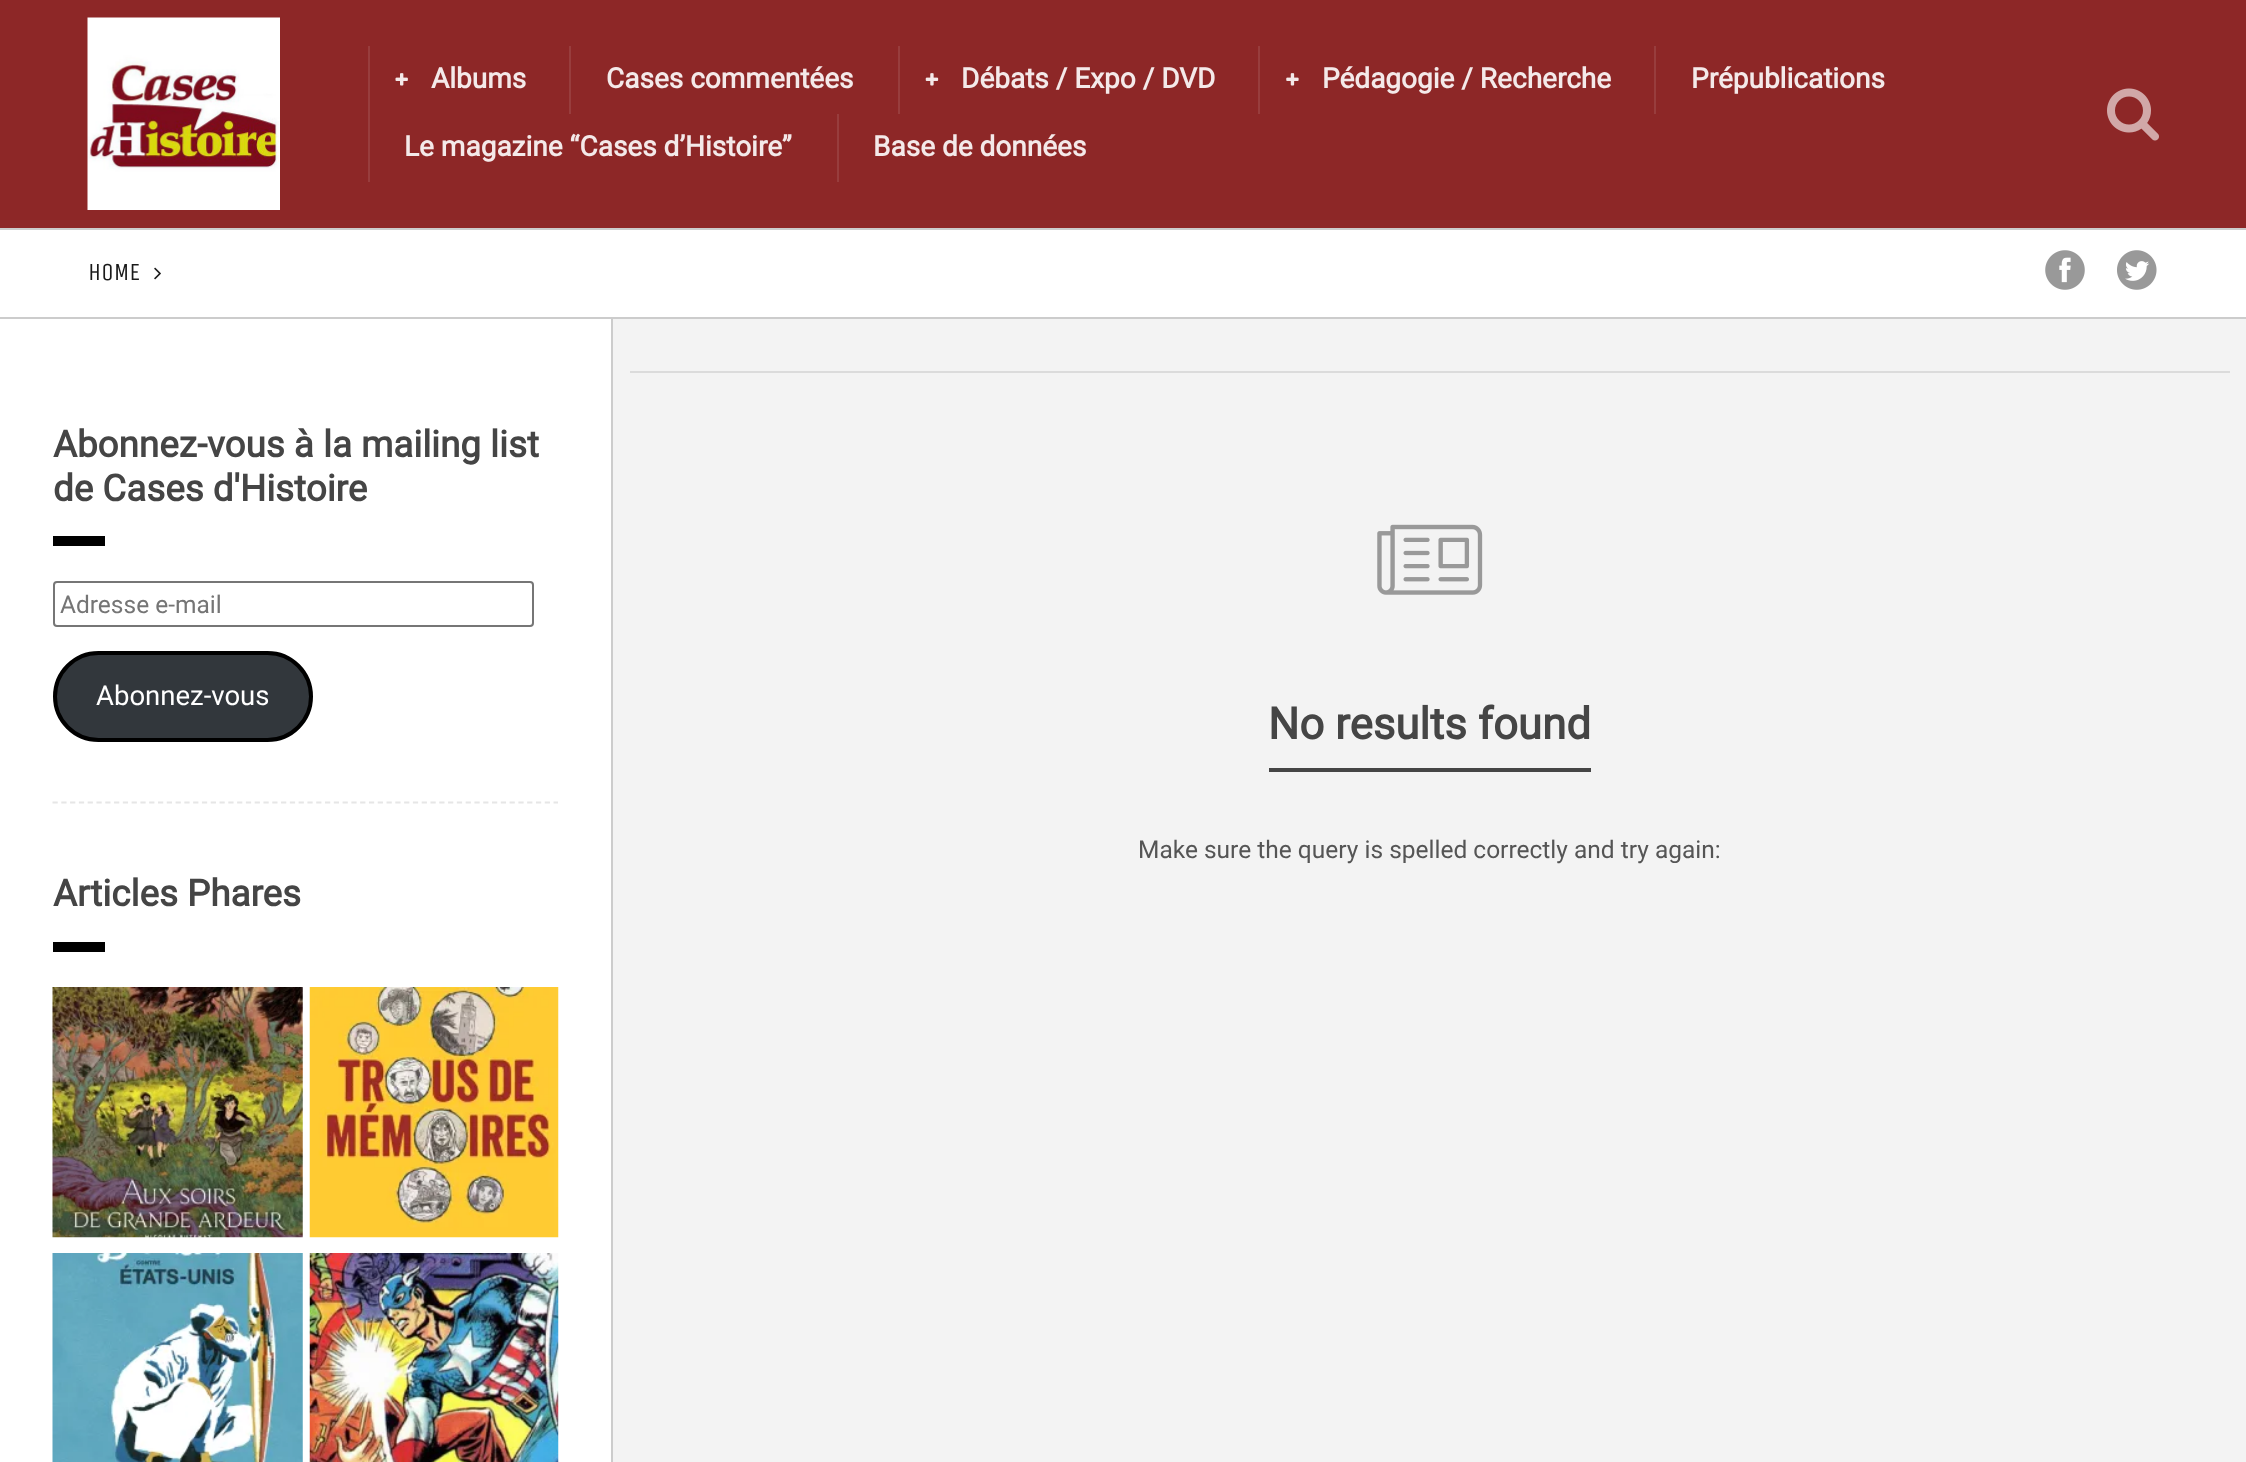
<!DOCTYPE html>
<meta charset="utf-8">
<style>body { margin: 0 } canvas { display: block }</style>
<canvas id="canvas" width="2246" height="1462"></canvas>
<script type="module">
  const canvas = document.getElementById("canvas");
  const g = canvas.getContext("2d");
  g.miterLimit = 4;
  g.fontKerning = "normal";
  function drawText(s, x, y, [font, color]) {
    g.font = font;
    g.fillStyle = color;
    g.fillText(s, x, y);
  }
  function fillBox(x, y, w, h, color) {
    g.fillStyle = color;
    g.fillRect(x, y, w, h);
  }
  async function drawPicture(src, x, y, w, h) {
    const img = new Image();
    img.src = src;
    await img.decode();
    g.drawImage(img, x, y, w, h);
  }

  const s1 = ["bold 28px Roboto", "#F4E9E9"];
  const s2 = ["24.5px Unica One", "#1A1A1A"];
  const s3 = ["bold 36.75px Roboto", "#454545"];
  const s4 = ["24.5px Roboto", "#757575"];
  const s5 = ["27.5px Roboto", "#FFFFFF"];
  const s6 = ["bold 43.75px Roboto", "#454545"];
  const s7 = ["24.5px Roboto", "#555555"];

  fillBox(0, 0, 2246, 1462, "#FFFFFF");
  fillBox(0, 0, 2246, 228, "#8D2727");
  await drawPicture("pic1.png", 87, 17, 193, 193);
  fillBox(368, 46, 2, 136, "#983D3D");
  await drawPicture("pic2.png", 395, 73, 13, 13);
  drawText("Albums", 431, 88, s1);
  fillBox(569, 46, 2, 68, "#983D3D");
  drawText("Cases commentées", 606, 88, s1);
  fillBox(898, 46, 2, 68, "#983D3D");
  await drawPicture("pic3.png", 925, 73, 14, 13);
  drawText("Débats / Expo / DVD", 961, 88, s1);
  fillBox(1258, 46, 2, 68, "#983D3D");
  await drawPicture("pic4.png", 1286, 73, 13, 13);
  drawText("Pédagogie / Recherche", 1322, 88, s1);
  fillBox(1654, 46, 2, 68, "#983D3D");
  drawText("Prépublications", 1691, 88, s1);
  drawText("Le magazine “Cases d’Histoire”", 404, 156, s1);
  fillBox(837, 114, 2, 68, "#983D3D");
  drawText("Base de données", 873, 156, s1);
  await drawPicture("pic5.png", 2107, 88, 52, 53);
  fillBox(0, 228, 2246, 2, "#CCCCCC");
  fillBox(0, 317, 2246, 2, "#CCCCCC");
  drawText("HOME", 88, 280, s2);
  await drawPicture("pic6.png", 154, 267, 7, 13);
  await drawPicture("pic7.png", 2045, 250, 40, 40);
  await drawPicture("pic8.png", 2117, 250, 40, 40);
  fillBox(613, 319, 1633, 1143, "#F3F3F3");
  fillBox(611, 319, 2, 1143, "#CCCCCC");
  g.beginPath();
  g.moveTo(52.5, 802.5);
  g.lineTo(558, 802.5);
  g.strokeStyle = "#E6E6E6";
  g.lineWidth = 1.8;
  g.setLineDash([5.25, 3.54]);
  g.stroke();
  drawText("Abonnez-vous à la mailing list", 53, 457, s3);
  drawText("de Cases d'Histoire", 53, 501, s3);
  fillBox(53, 536, 52, 10, "#000000");
  g.beginPath();
  g.roundRect(54, 582, 479, 44, 3);
  g.strokeStyle = "#767676";
  g.lineWidth = 2;
  g.setLineDash([]);
  g.stroke();
  drawText("Adresse e-mail", 60, 613, s4);
  g.fillStyle = "#32373C";
  g.beginPath();
  g.roundRect(55, 653, 256, 87, 43.5);
  g.fill();
  g.strokeStyle = "#000000";
  g.lineWidth = 4;
  g.stroke();
  drawText("Abonnez-vous", 96, 705, s5);
  drawText("Articles Phares", 53, 906, s3);
  fillBox(53, 942, 52, 10, "#000000");
  await drawPicture("pic9.png", 52, 987, 251, 251);
  await drawPicture("pic10.png", 309, 987, 250, 251);
  await drawPicture("pic11.png", 52, 1253, 251, 209);
  await drawPicture("pic12.png", 309, 1253, 250, 209);
  fillBox(630, 371, 1600, 2, "#DBDBDB");
  await drawPicture("pic13.png", 1377, 524, 106, 71);
  fillBox(1269, 768, 322, 4, "#454545");
  drawText("No results found", 1268, 739, s6);
  drawText("Make sure the query is spelled correctly and try again:", 1138, 858, s7);
</script>
